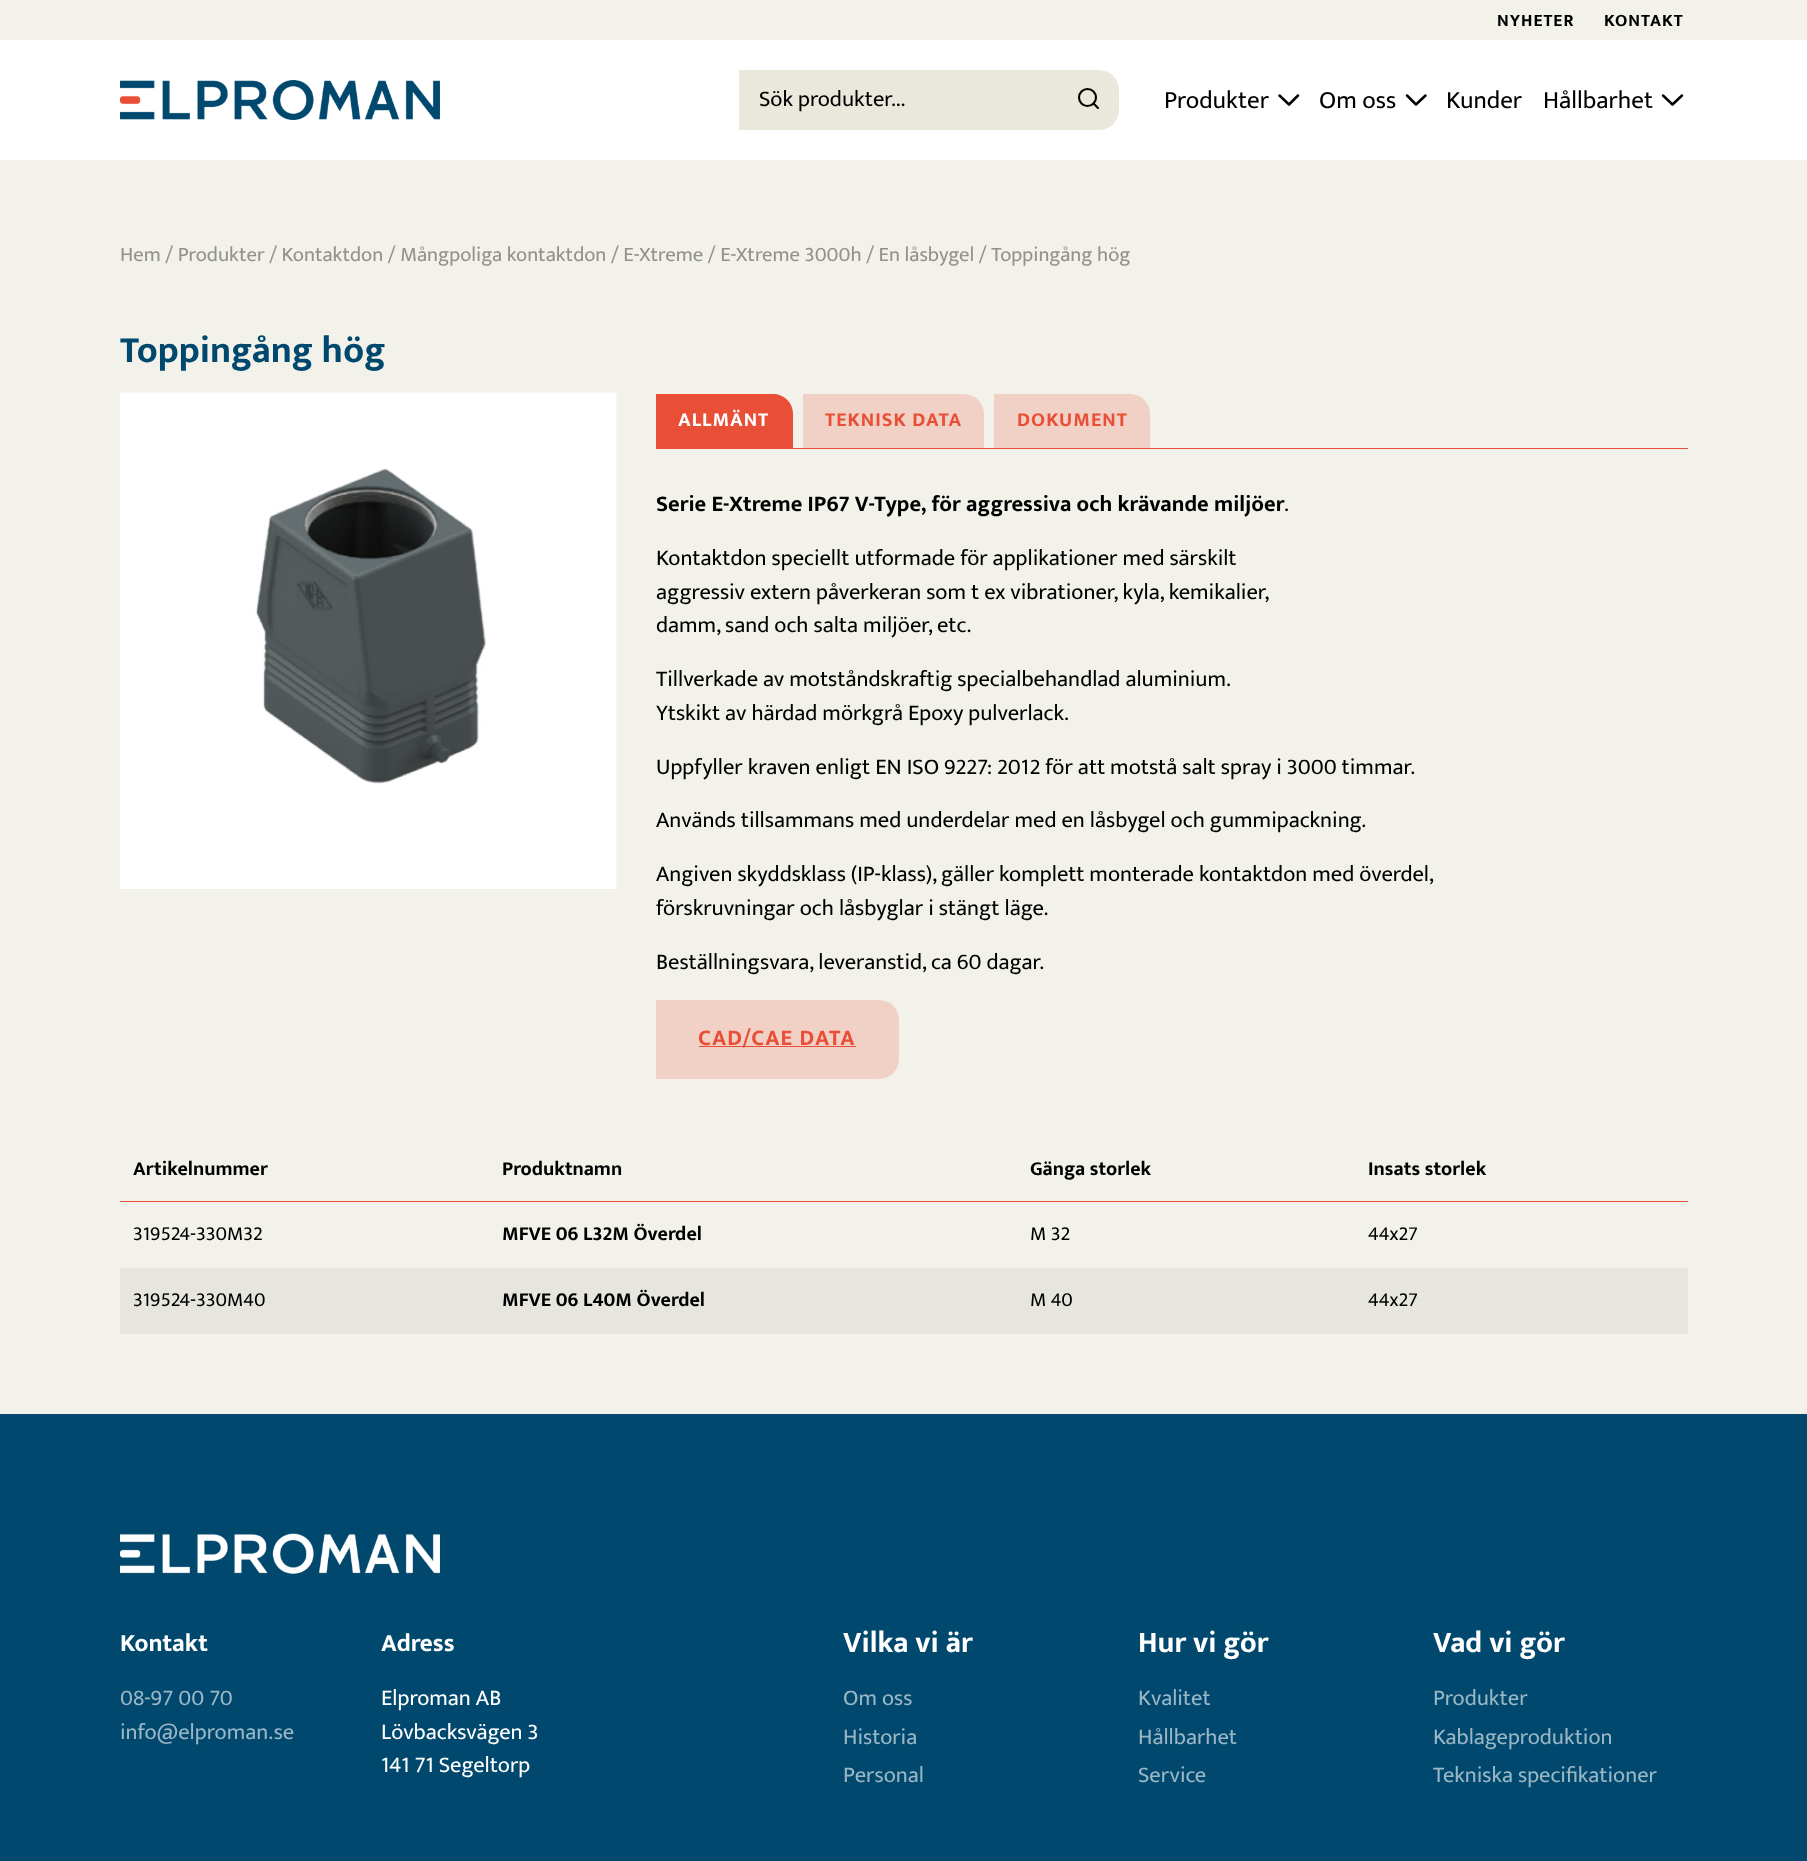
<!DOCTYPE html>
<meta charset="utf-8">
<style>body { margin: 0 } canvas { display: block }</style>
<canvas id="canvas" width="1807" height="1861"></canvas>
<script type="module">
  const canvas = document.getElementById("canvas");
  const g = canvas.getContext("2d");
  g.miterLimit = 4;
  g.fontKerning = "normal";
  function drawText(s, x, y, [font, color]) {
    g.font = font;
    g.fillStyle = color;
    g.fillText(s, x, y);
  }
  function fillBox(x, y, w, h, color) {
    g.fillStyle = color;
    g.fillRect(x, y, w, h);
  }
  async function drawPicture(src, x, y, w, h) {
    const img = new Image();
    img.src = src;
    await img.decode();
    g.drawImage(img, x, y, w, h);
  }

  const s1 = ["bold 17.5px Mukta", "#000000"];
  const s2 = ["22.5px Mukta", "#000000"];
  const s3 = ["25px Mukta", "#000000"];
  const s4 = ["20.7px Mukta", "#92918C"];
  const s5 = ["bold 37.5px Mukta", "#00486E"];
  const s6 = ["bold 20px Mukta", "#FFFFFF"];
  const s7 = ["bold 20px Mukta", "#E94F36"];
  const s8 = ["bold 22.5px Mukta", "#000000"];
  const s9 = ["bold 22.5px Mukta", "#E94F36"];
  const s10 = ["bold 20px Mukta", "#000000"];
  const s11 = ["20px Mukta", "#000000"];
  const s12 = ["bold 25px Mukta", "#FFFFFF"];
  const s13 = ["22.5px Mukta", "#99B6C5"];
  const s14 = ["22.5px Mukta", "#FFFFFF"];
  const s15 = ["bold 30px Mukta", "#FFFFFF"];

  fillBox(0, 0, 1807, 1861, "#FFFFFF");
  fillBox(0, 0, 1807, 40, "#F2F1EA");
  g.letterSpacing = "1px";
  drawText("NYHETER", 1497, 26, s1);
  drawText("KONTAKT", 1604, 26, s1);
  await drawPicture("pic1.png", 120, 80, 320, 40);
  fillBox(739, 70, 320, 60, "#EAE8DC");
  g.letterSpacing = "0px";
  drawText("Sök produkter...", 759, 106, s2);
  g.fillStyle = "#EAE8DC";
  g.beginPath();
  g.roundRect(1059, 70, 60, 60, [0, 20, 20, 0]);
  g.fill();
  g.beginPath();
  g.arc(1087.5, 97.5, 8.5, 0, Math.PI * 2);
  g.strokeStyle = "#000000";
  g.lineWidth = 2.1;
  g.stroke();
  g.beginPath();
  g.moveTo(1098, 108);
  g.lineTo(1093.5, 103.5);
  g.lineCap = "round";
  g.lineJoin = "round";
  g.stroke();
  drawText("Produkter", 1164, 108, s3);
  g.beginPath();
  g.moveTo(1298, 95.5);
  g.lineTo(1289, 104.5);
  g.lineTo(1279.5, 95.5);
  g.lineWidth = 2.5;
  g.stroke();
  drawText("Om oss", 1319, 108, s3);
  g.beginPath();
  g.moveTo(1425.5, 95.5);
  g.lineTo(1416, 104.5);
  g.lineTo(1407, 95.5);
  g.stroke();
  drawText("Kunder", 1446, 108, s3);
  drawText("Hållbarhet", 1543, 108, s3);
  g.beginPath();
  g.moveTo(1682, 95.5);
  g.lineTo(1672.5, 104.5);
  g.lineTo(1663, 95.5);
  g.stroke();
  fillBox(0, 160, 1807, 1254, "#F3F2EA");
  drawText("Hem / Produkter / Kontaktdon / Mångpoliga kontaktdon / E-Xtreme / E-Xtreme 3000h / En låsbygel / Toppingång hög", 120, 261, s4);
  drawText("Toppingång hög", 120, 362, s5);
  fillBox(120, 888, 496, 1, "#FFFFFF");
  await drawPicture("pic2.png", 120, 392, 497, 496);
  g.fillStyle = "#E94F36";
  g.beginPath();
  g.roundRect(657.5, 395.5, 134, 52, [0, 18.5, 0, 0]);
  g.fill();
  g.strokeStyle = "#E94F36";
  g.lineWidth = 3;
  g.lineJoin = "miter";
  g.stroke();
  g.letterSpacing = "1px";
  drawText("ALLMÄNT", 678, 426, s6);
  fillBox(793, 448, 895, 1, "#E94F36");
  g.fillStyle = "rgba(233, 79, 54, 0.2)";
  g.beginPath();
  g.roundRect(803, 394, 181, 55, [0, 20, 0, 0]);
  g.fill();
  drawText("TEKNISK DATA", 825, 426, s7);
  g.fillStyle = "rgba(233, 79, 54, 0.2)";
  g.beginPath();
  g.roundRect(994, 394, 156, 55, [0, 20, 0, 0]);
  g.fill();
  drawText("DOKUMENT", 1017, 426, s7);
  g.letterSpacing = "0px";
  drawText("Serie E-Xtreme IP67 V-Type, för aggressiva och krävande miljöer", 656, 511, s8);
  drawText(".", 1284, 511, s2);
  drawText("Kontaktdon speciellt utformade för applikationer med särskilt", 656, 565, s2);
  drawText("aggressiv extern påverkeran som t ex vibrationer, kyla, kemikalier,", 656, 599, s2);
  drawText("damm, sand och salta miljöer, etc.", 656, 632, s2);
  drawText("Tillverkade av motståndskraftig specialbehandlad aluminium.", 656, 686, s2);
  drawText("Ytskikt av härdad mörkgrå Epoxy pulverlack.", 656, 720, s2);
  drawText("Uppfyller kraven enligt EN ISO 9227: 2012 för att motstå salt spray i 3000 timmar.", 656, 774, s2);
  drawText("Används tillsammans med underdelar med en låsbygel och gummipackning.", 656, 827, s2);
  drawText("Angiven skyddsklass (IP-klass), gäller komplett monterade kontaktdon med överdel,", 656, 881, s2);
  drawText("förskruvningar och låsbyglar i stängt läge.", 656, 915, s2);
  drawText("Beställningsvara, leveranstid, ca 60 dagar.", 656, 969, s2);
  g.fillStyle = "#F1D1C6";
  g.beginPath();
  g.roundRect(656, 1000, 243, 79, [0, 20, 20, 0]);
  g.fill();
  fillBox(699, 1046, 157, 1, "#E94F36");
  g.letterSpacing = "1.1px";
  drawText("CAD/CAE DATA", 698, 1045, s9);
  fillBox(120, 1201, 1568, 1, "#E94F36");
  g.letterSpacing = "0px";
  drawText("Artikelnummer", 133, 1175, s10);
  drawText("Produktnamn", 502, 1175, s10);
  drawText("Gänga storlek", 1030, 1175, s10);
  drawText("Insats storlek", 1368, 1175, s10);
  drawText("319524-330M32", 133, 1240, s11);
  drawText("MFVE 06 L32M Överdel", 502, 1240, s10);
  drawText("M 32", 1030, 1240, s11);
  drawText("44x27", 1368, 1240, s11);
  fillBox(120, 1268, 1568, 66, "#E7E6DE");
  drawText("319524-330M40", 133, 1306, s11);
  drawText("MFVE 06 L40M Överdel", 502, 1306, s10);
  drawText("M 40", 1030, 1306, s11);
  drawText("44x27", 1368, 1306, s11);
  fillBox(0, 1414, 1807, 447, "#00486E");
  await drawPicture("pic3.png", 120, 1533, 320, 41);
  drawText("Kontakt", 120, 1651, s12);
  drawText("08-97 00 70", 120, 1705, s13);
  drawText("info@elproman.se", 120, 1739, s13);
  drawText("Adress", 381, 1651, s12);
  drawText("Elproman AB", 381, 1705, s14);
  drawText("Lövbacksvägen 3", 381, 1739, s14);
  drawText("141 71 Segeltorp", 381, 1772, s14);
  drawText("Vilka vi är", 843, 1652, s15);
  drawText("Om oss", 843, 1705, s13);
  drawText("Historia", 843, 1744, s13);
  drawText("Personal", 843, 1782, s13);
  drawText("Hur vi gör", 1138, 1652, s15);
  drawText("Kvalitet", 1138, 1705, s13);
  drawText("Hållbarhet", 1138, 1744, s13);
  drawText("Service", 1138, 1782, s13);
  drawText("Vad vi gör", 1433, 1652, s15);
  drawText("Produkter", 1433, 1705, s13);
  drawText("Kablageproduktion", 1433, 1744, s13);
  drawText("Tekniska specifikationer", 1433, 1782, s13);
</script>
